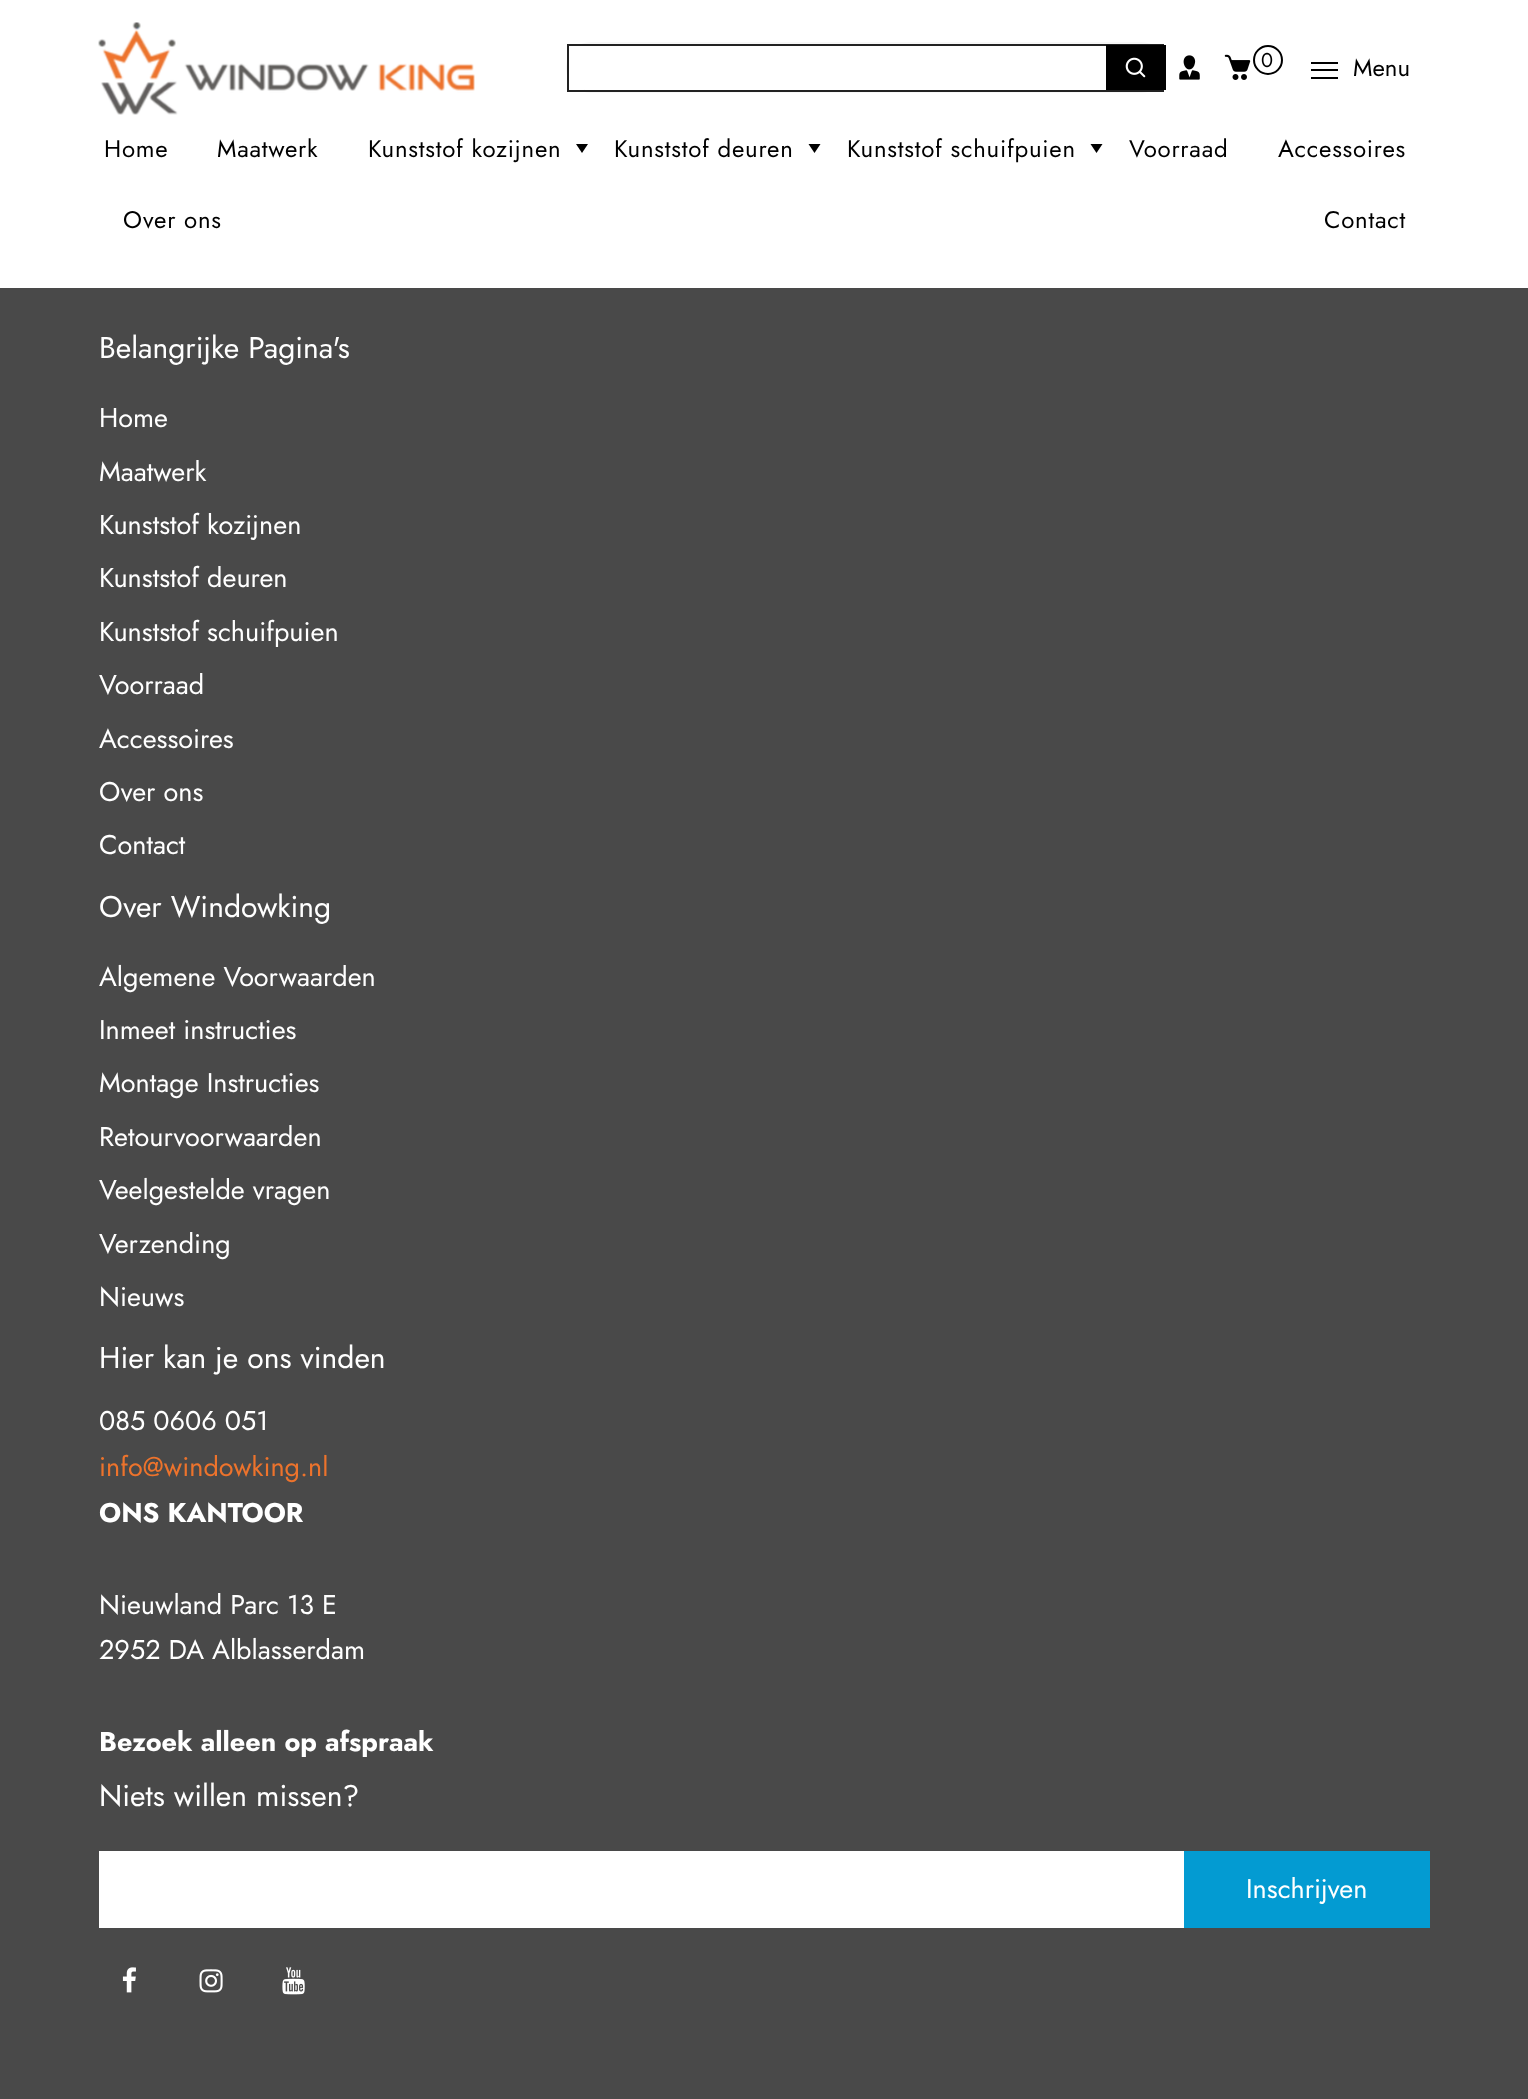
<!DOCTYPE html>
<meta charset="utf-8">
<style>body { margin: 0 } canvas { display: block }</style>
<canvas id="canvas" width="1528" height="2099"></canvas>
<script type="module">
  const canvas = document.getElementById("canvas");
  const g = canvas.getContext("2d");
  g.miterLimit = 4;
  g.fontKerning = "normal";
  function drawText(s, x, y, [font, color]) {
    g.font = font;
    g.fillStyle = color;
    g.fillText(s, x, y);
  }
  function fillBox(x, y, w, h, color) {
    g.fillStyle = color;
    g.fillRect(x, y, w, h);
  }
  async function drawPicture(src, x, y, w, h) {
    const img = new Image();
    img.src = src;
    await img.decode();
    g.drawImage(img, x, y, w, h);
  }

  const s1 = ["20px Jost", "#000000"];
  const s2 = ["24px Jost", "#000000"];
  const s3 = ["30px Jost", "#FFFFFF"];
  const s4 = ["27px Jost", "#FFFFFF"];
  const s5 = ["27px Jost", "#ED732C"];
  const s6 = ["bold 27px Jost", "#FFFFFF"];

  fillBox(0, 0, 1528, 2099, "#FFFFFF");
  await drawPicture("pic1.png", 98, 22, 377, 93);
  g.beginPath();
  g.roundRect(567, 43, 598, 49, 24.5);
  g.strokeStyle = "#F7F7F7";
  g.lineWidth = 2;
  g.stroke();
  fillBox(569, 46, 15, 44, "#FFFFFF");
  g.strokeStyle = "#222222";
  g.strokeRect(568, 45, 595, 46);
  fillBox(1106, 45, 60, 45, "#000000");
  await drawPicture("pic2.png", 1125, 57, 21, 21);
  await drawPicture("pic3.png", 1179, 55, 21, 25);
  await drawPicture("pic4.png", 1224, 54, 27, 26);
  g.beginPath();
  g.arc(1268, 60, 14, 0, Math.PI * 2);
  g.strokeStyle = "#000000";
  g.stroke();
  drawText("0", 1261, 67, s1);
  fillBox(1311, 69, 27, 2, "#000000");
  fillBox(1311, 62, 27, 2, "#000000");
  fillBox(1311, 77, 27, 2, "#000000");
  drawText("Menu", 1353, 76, s2);
  g.letterSpacing = "0.75px";
  drawText("Home", 104, 157, s2);
  drawText("Maatwerk", 217, 157, s2);
  drawText("Kunststof kozijnen", 368, 157, s2);
  g.beginPath();
  g.moveTo(576, 144);
  g.lineTo(588, 144);
  g.lineTo(582, 153);
  g.closePath();
  g.fill();
  drawText("Kunststof deuren", 614, 157, s2);
  g.beginPath();
  g.moveTo(808.5, 144);
  g.lineTo(820.5, 144);
  g.lineTo(814.5, 153);
  g.closePath();
  g.fill();
  drawText("Kunststof schuifpuien", 847, 157, s2);
  g.beginPath();
  g.moveTo(1090.5, 144);
  g.lineTo(1102.5, 144);
  g.lineTo(1096.5, 153);
  g.closePath();
  g.fill();
  drawText("Voorraad", 1129, 157, s2);
  drawText("Accessoires", 1278, 157, s2);
  drawText("Over ons", 123, 228, s2);
  drawText("Contact", 1324, 228, s2);
  fillBox(0, 288, 1528, 1811, "#494949");
  g.letterSpacing = "0px";
  drawText("Belangrijke Pagina's", 99, 358, s3);
  drawText("Home", 99, 427, s4);
  drawText("Maatwerk", 99, 481, s4);
  drawText("Kunststof kozijnen", 99, 534, s4);
  drawText("Kunststof deuren", 99, 587, s4);
  drawText("Kunststof schuifpuien", 99, 641, s4);
  drawText("Voorraad", 99, 694, s4);
  drawText("Accessoires", 99, 748, s4);
  drawText("Over ons", 99, 801, s4);
  drawText("Contact", 99, 854, s4);
  drawText("Over Windowking", 99, 917, s3);
  drawText("Algemene Voorwaarden", 99, 986, s4);
  drawText("Inmeet instructies", 99, 1039, s4);
  drawText("Montage Instructies", 99, 1092, s4);
  drawText("Retourvoorwaarden", 99, 1146, s4);
  drawText("Veelgestelde vragen", 99, 1199, s4);
  drawText("Verzending", 99, 1253, s4);
  drawText("Nieuws", 99, 1306, s4);
  drawText("Hier kan je ons vinden", 99, 1368, s3);
  drawText("085 0606 051", 99, 1430, s4);
  drawText("info@windowking.nl", 99, 1476, s5);
  drawText("ONS KANTOOR", 99, 1522, s6);
  drawText("Nieuwland Parc 13 E", 99, 1614, s4);
  drawText("2952 DA Alblasserdam", 99, 1659, s4);
  drawText("Bezoek alleen op afspraak", 99, 1751, s6);
  drawText("Niets willen missen?", 99, 1806, s3);
  fillBox(99, 1851, 1085, 77, "#FFFFFF");
  fillBox(1184, 1851, 246, 77, "#039BD2");
  drawText("Inschrijven", 1246, 1898, s4);
  await drawPicture("pic5.png", 122, 1967, 14, 26);
  await drawPicture("pic6.png", 199, 1969, 24, 24);
  await drawPicture("pic7.png", 282, 1967, 23, 28);
</script>
